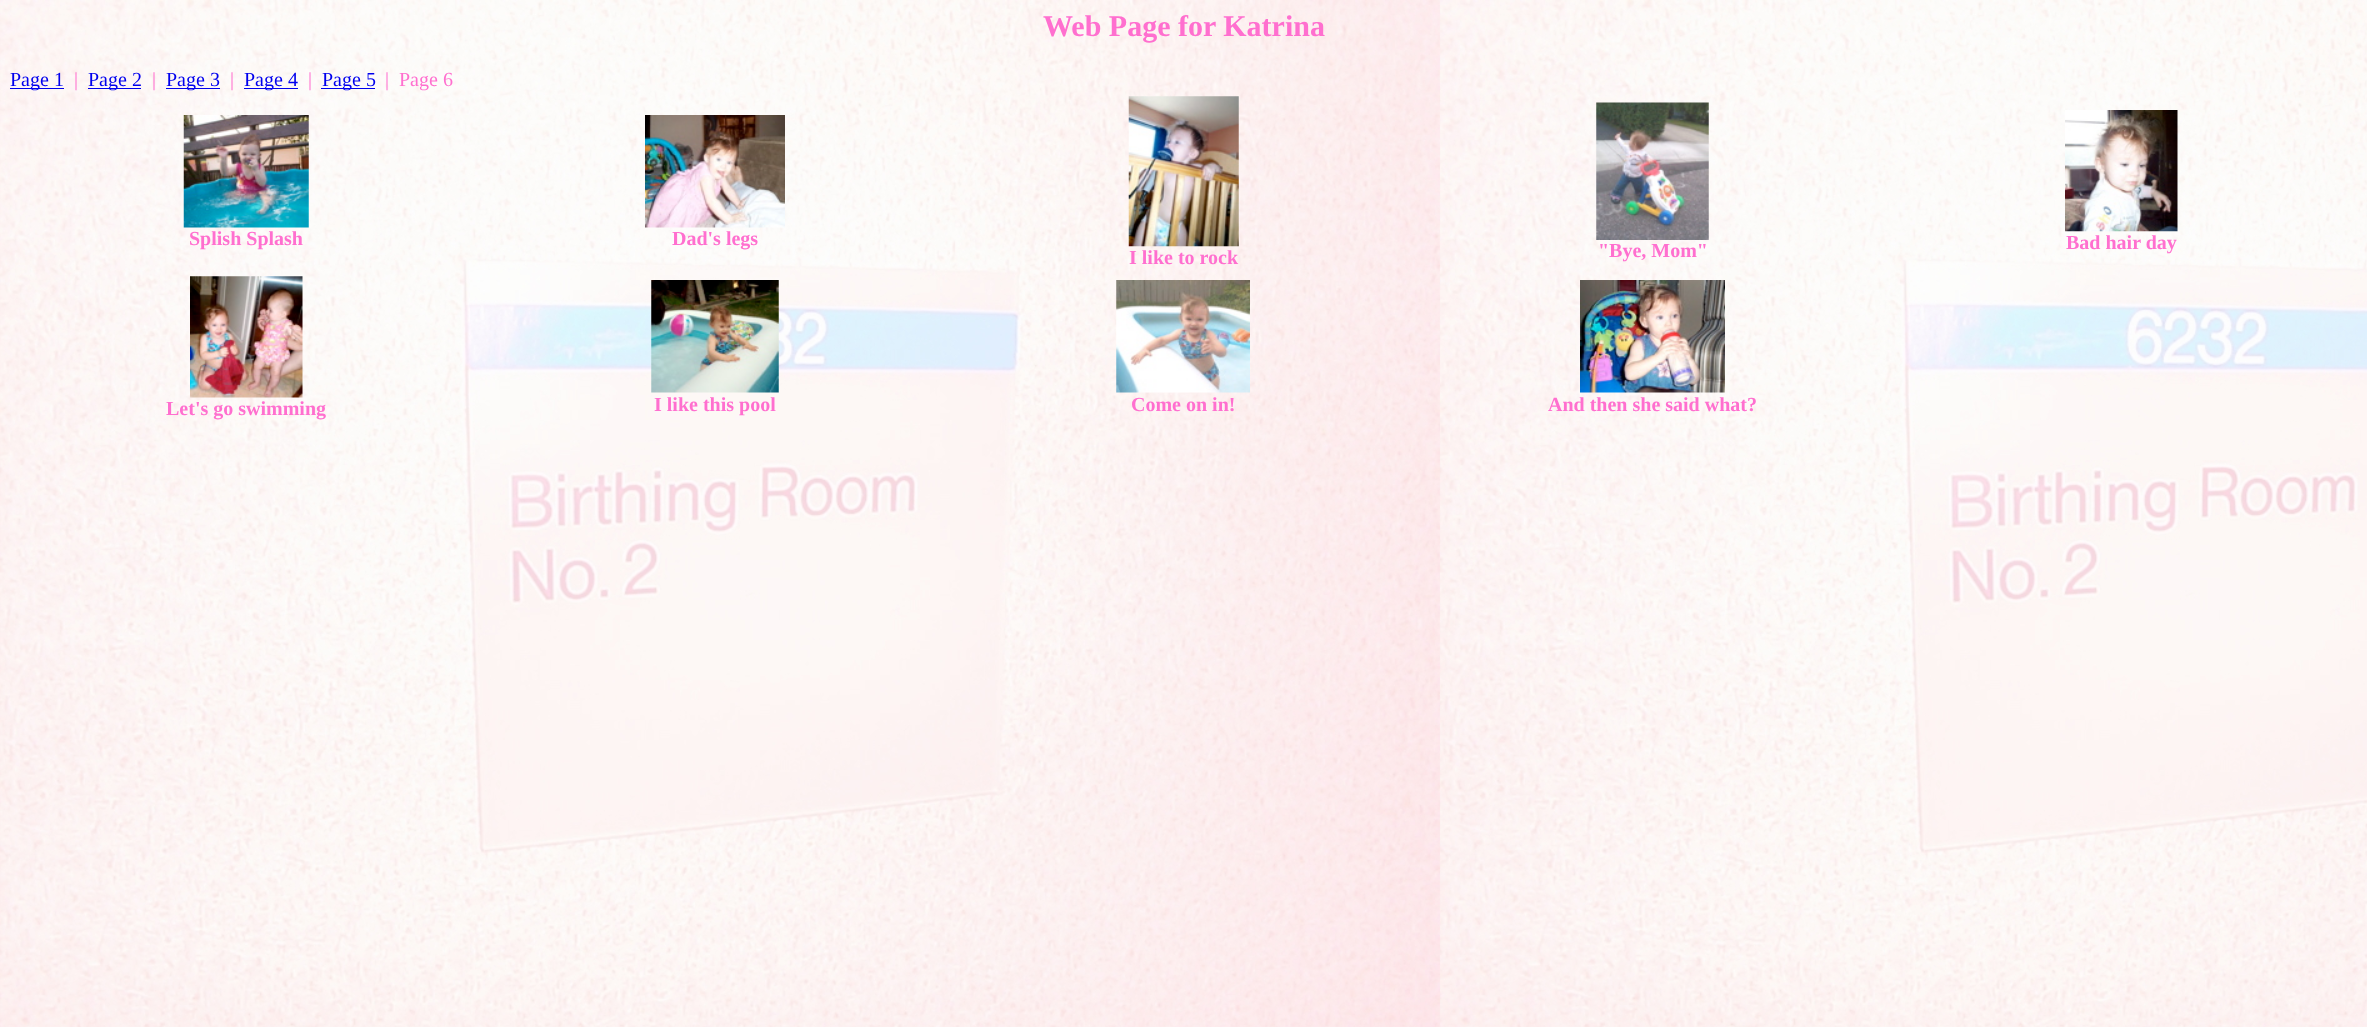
<!DOCTYPE html>
<meta charset="utf-8">
<style>body { margin: 0 } canvas { display: block }</style>
<canvas id="canvas" width="2367" height="1027"></canvas>
<script type="module">
  const canvas = document.getElementById("canvas");
  const g = canvas.getContext("2d");
  g.miterLimit = 4;
  g.fontKerning = "normal";
  function drawText(s, x, y, [font, color]) {
    g.font = font;
    g.fillStyle = color;
    g.fillText(s, x, y);
  }
  function fillBox(x, y, w, h, color) {
    g.fillStyle = color;
    g.fillRect(x, y, w, h);
  }
  async function drawPicture(src, x, y, w, h) {
    const img = new Image();
    img.src = src;
    await img.decode();
    g.drawImage(img, x, y, w, h);
  }

  const s1 = ["bold 30px Liberation Serif", "#FF6FCF"];
  const s2 = ["20px Liberation Serif", "#0000EE"];
  const s3 = ["20px Liberation Serif", "#FF6FCF"];
  const s4 = ["bold 20px Liberation Serif", "#FF6FCF"];

  fillBox(0, 0, 2367, 1027, "#FFFFFF");
  await drawPicture("pic1.png", 0, 0, 2367, 1027);
  drawText("Web Page for Katrina", 1043, 36, s1);
  fillBox(10, 88, 54, 1, "#0000EE");
  drawText("Page 1", 10, 86, s2);
  drawText("|", 74, 86, s3);
  fillBox(88, 88, 53, 1, "#0000EE");
  drawText("Page 2", 88, 86, s2);
  drawText("|", 152, 86, s3);
  fillBox(166, 88, 54, 1, "#0000EE");
  drawText("Page 3", 166, 86, s2);
  drawText("|", 230, 86, s3);
  fillBox(244, 88, 54, 1, "#0000EE");
  drawText("Page 4", 244, 86, s2);
  drawText("|", 308, 86, s3);
  fillBox(321, 88, 54, 1, "#0000EE");
  drawText("Page 5", 322, 86, s2);
  drawText("|", 385, 86, s3);
  drawText("Page 6", 399, 86, s3);
  await drawPicture("pic2.png", 183, 115, 126, 113);
  drawText("Splish Splash", 189, 245, s4);
  await drawPicture("pic3.png", 645, 115, 140, 113);
  drawText("Dad's legs", 672, 245, s4);
  await drawPicture("pic4.png", 1128, 96, 111, 151);
  drawText("I like to rock", 1129, 264, s4);
  await drawPicture("pic5.png", 1596, 102, 113, 138);
  drawText("\"Bye, Mom\"", 1598, 257, s4);
  await drawPicture("pic6.png", 2065, 110, 113, 122);
  drawText("Bad hair day", 2066, 249, s4);
  await drawPicture("pic7.png", 190, 276, 113, 122);
  drawText("Let's go swimming", 166, 415, s4);
  await drawPicture("pic8.png", 651, 280, 128, 113);
  drawText("I like this pool", 654, 411, s4);
  await drawPicture("pic9.png", 1116, 280, 134, 113);
  drawText("Come on in!", 1131, 411, s4);
  await drawPicture("pic10.png", 1580, 280, 145, 113);
  drawText("And then she said what?", 1548, 411, s4);
</script>
